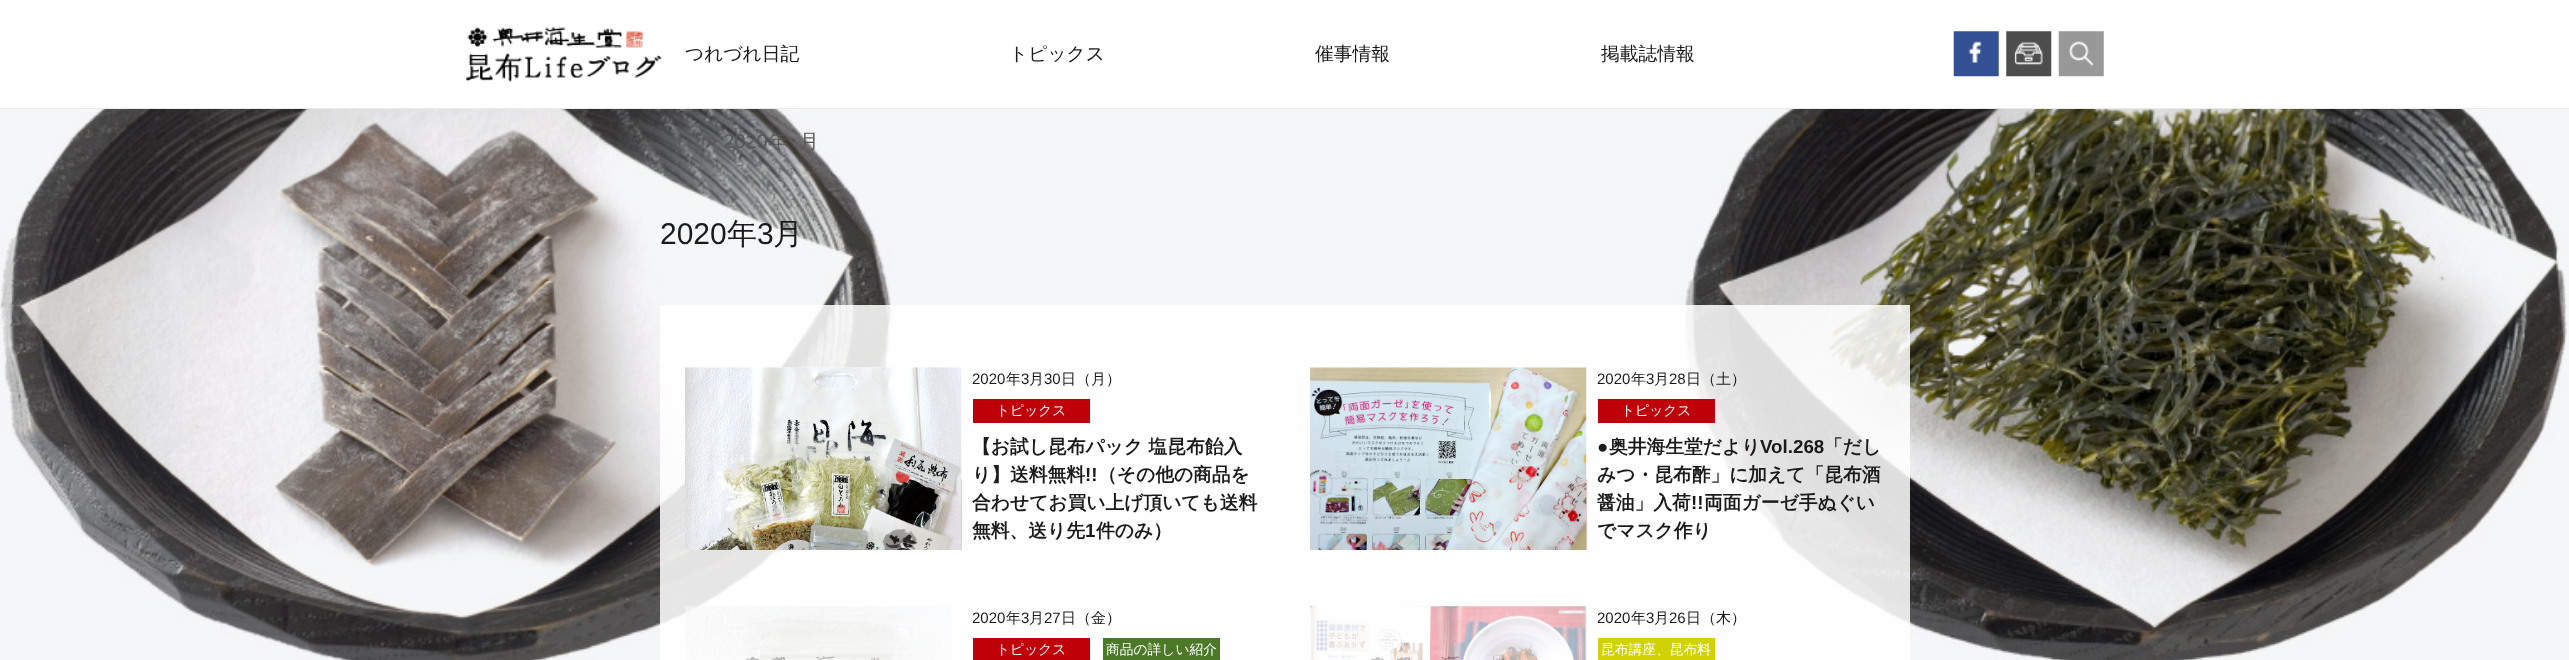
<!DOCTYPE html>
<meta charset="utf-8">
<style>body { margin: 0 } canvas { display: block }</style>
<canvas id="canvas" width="2569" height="660"></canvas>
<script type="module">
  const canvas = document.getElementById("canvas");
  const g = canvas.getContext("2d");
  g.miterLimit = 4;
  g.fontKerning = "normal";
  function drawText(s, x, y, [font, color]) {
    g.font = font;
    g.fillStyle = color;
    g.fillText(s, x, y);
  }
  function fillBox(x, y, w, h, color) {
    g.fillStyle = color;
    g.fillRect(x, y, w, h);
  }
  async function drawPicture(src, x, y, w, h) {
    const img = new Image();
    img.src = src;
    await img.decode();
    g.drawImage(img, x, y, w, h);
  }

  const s1 = ["500 18.75px WenQuanYi Zen Hei", "#1A1A1A"];
  const s2 = ["20px Liberation Sans", "#595757"];
  const s3 = ["500 20px WenQuanYi Zen Hei", "#595757"];
  const s4 = ["30px Liberation Sans", "#1A1A1A"];
  const s5 = ["500 30px WenQuanYi Zen Hei", "#1A1A1A"];
  const s6 = ["15px Liberation Sans", "#1A1A1A"];
  const s7 = ["500 15px WenQuanYi Zen Hei", "#1A1A1A"];
  const s8 = ["500 13.75px WenQuanYi Zen Hei", "#FFFFFF"];
  const s9 = ["bold 18.75px WenQuanYi Zen Hei", "#1A1A1A"];
  const s10 = ["bold 18.75px Liberation Sans", "#1A1A1A"];

  fillBox(0, 0, 2569, 660, "#F5F6F7");
  await drawPicture("pic1.png", 0, 109, 2567, 551);
  fillBox(0, 0, 2569, 108, "#FFFFFF");
  fillBox(0, 108, 2569, 1, "#EBEBEB");
  await drawPicture("pic2.png", 466, 27, 196, 55);
  drawText("つれづれ日記", 685, 60, s1);
  drawText("トピックス", 1009, 60, s1);
  drawText("催事情報", 1315, 60, s1);
  drawText("掲載誌情報", 1601, 60, s1);
  await drawPicture("pic3.png", 1953, 31, 46, 46);
  await drawPicture("pic4.png", 2006, 31, 46, 46);
  await drawPicture("pic5.png", 2058, 31, 46, 46);
  drawText("> 2020", 706, 148, s2);
  drawText("年", 768, 148, s3);
  drawText("月", 799, 148, s3);
  drawText("2020", 660, 244, s4);
  drawText("年", 727, 244, s5);
  drawText("3", 757, 244, s4);
  drawText("月", 773, 244, s5);
  fillBox(660, 305, 1250, 355, "rgba(255, 255, 255, 0.86)");
  await drawPicture("pic6.png", 685, 367, 277, 183);
  await drawPicture("pic7.png", 685, 367, 277, 183);
  drawText("2020", 972, 384, s6);
  drawText("年", 1006, 384, s7);
  drawText("3", 1021, 384, s6);
  drawText("月", 1029, 384, s7);
  drawText("30", 1044, 384, s6);
  drawText("日（月）", 1061, 384, s7);
  fillBox(973, 399, 117, 24, "#BF0008");
  drawText("トピックス", 996, 415, s8);
  drawText("【お試し昆布パック 塩昆布飴入", 972, 453, s9);
  drawText("り】送料無料", 972, 481, s9);
  drawText("!!", 1085, 481, s10);
  drawText("（その他の商品を", 1098, 481, s9);
  drawText("合わせてお買い上げ頂いても送料", 972, 509, s9);
  drawText("無料、送り先", 972, 537, s9);
  drawText("1", 1085, 537, s10);
  drawText("件のみ）", 1096, 537, s9);
  await drawPicture("pic8.png", 1330, 417, 257, 133);
  await drawPicture("pic9.png", 1310, 367, 277, 183);
  drawText("2020", 1597, 384, s6);
  drawText("年", 1631, 384, s7);
  drawText("3", 1646, 384, s6);
  drawText("月", 1654, 384, s7);
  drawText("28", 1669, 384, s6);
  drawText("日（土）", 1686, 384, s7);
  fillBox(1598, 399, 117, 24, "#BF0008");
  drawText("トピックス", 1621, 415, s8);
  drawText("●", 1597, 453, s10);
  drawText("奥井海生堂だより", 1609, 453, s9);
  drawText("Vol.268", 1760, 453, s10);
  drawText("「だし", 1824, 453, s9);
  drawText("みつ・昆布酢」に加えて「昆布酒", 1597, 481, s9);
  drawText("醤油」入荷", 1597, 509, s9);
  drawText("!!", 1691, 509, s10);
  drawText("両面ガーゼ手ぬぐい", 1704, 509, s9);
  drawText("でマスク作り", 1597, 537, s9);
  await drawPicture("pic10.png", 685, 606, 195, 54);
  await drawPicture("pic11.png", 685, 606, 267, 54);
  drawText("2020", 972, 623, s6);
  drawText("年", 1006, 623, s7);
  drawText("3", 1021, 623, s6);
  drawText("月", 1029, 623, s7);
  drawText("27", 1044, 623, s6);
  drawText("日（金）", 1061, 623, s7);
  fillBox(973, 638, 117, 22, "#BF0008");
  drawText("トピックス", 996, 654, s8);
  fillBox(1103, 638, 117, 22, "#4C7927");
  drawText("商品の詳しい紹介", 1106, 654, s8);
  await drawPicture("pic12.png", 1371, 656, 134, 4);
  await drawPicture("pic13.png", 1310, 606, 277, 54);
  drawText("2020", 1597, 623, s6);
  drawText("年", 1631, 623, s7);
  drawText("3", 1646, 623, s6);
  drawText("月", 1654, 623, s7);
  drawText("26", 1669, 623, s6);
  drawText("日（木）", 1686, 623, s7);
  fillBox(1598, 638, 117, 22, "#D0D204");
  drawText("昆布講座、昆布料", 1601, 654, s8);
</script>
